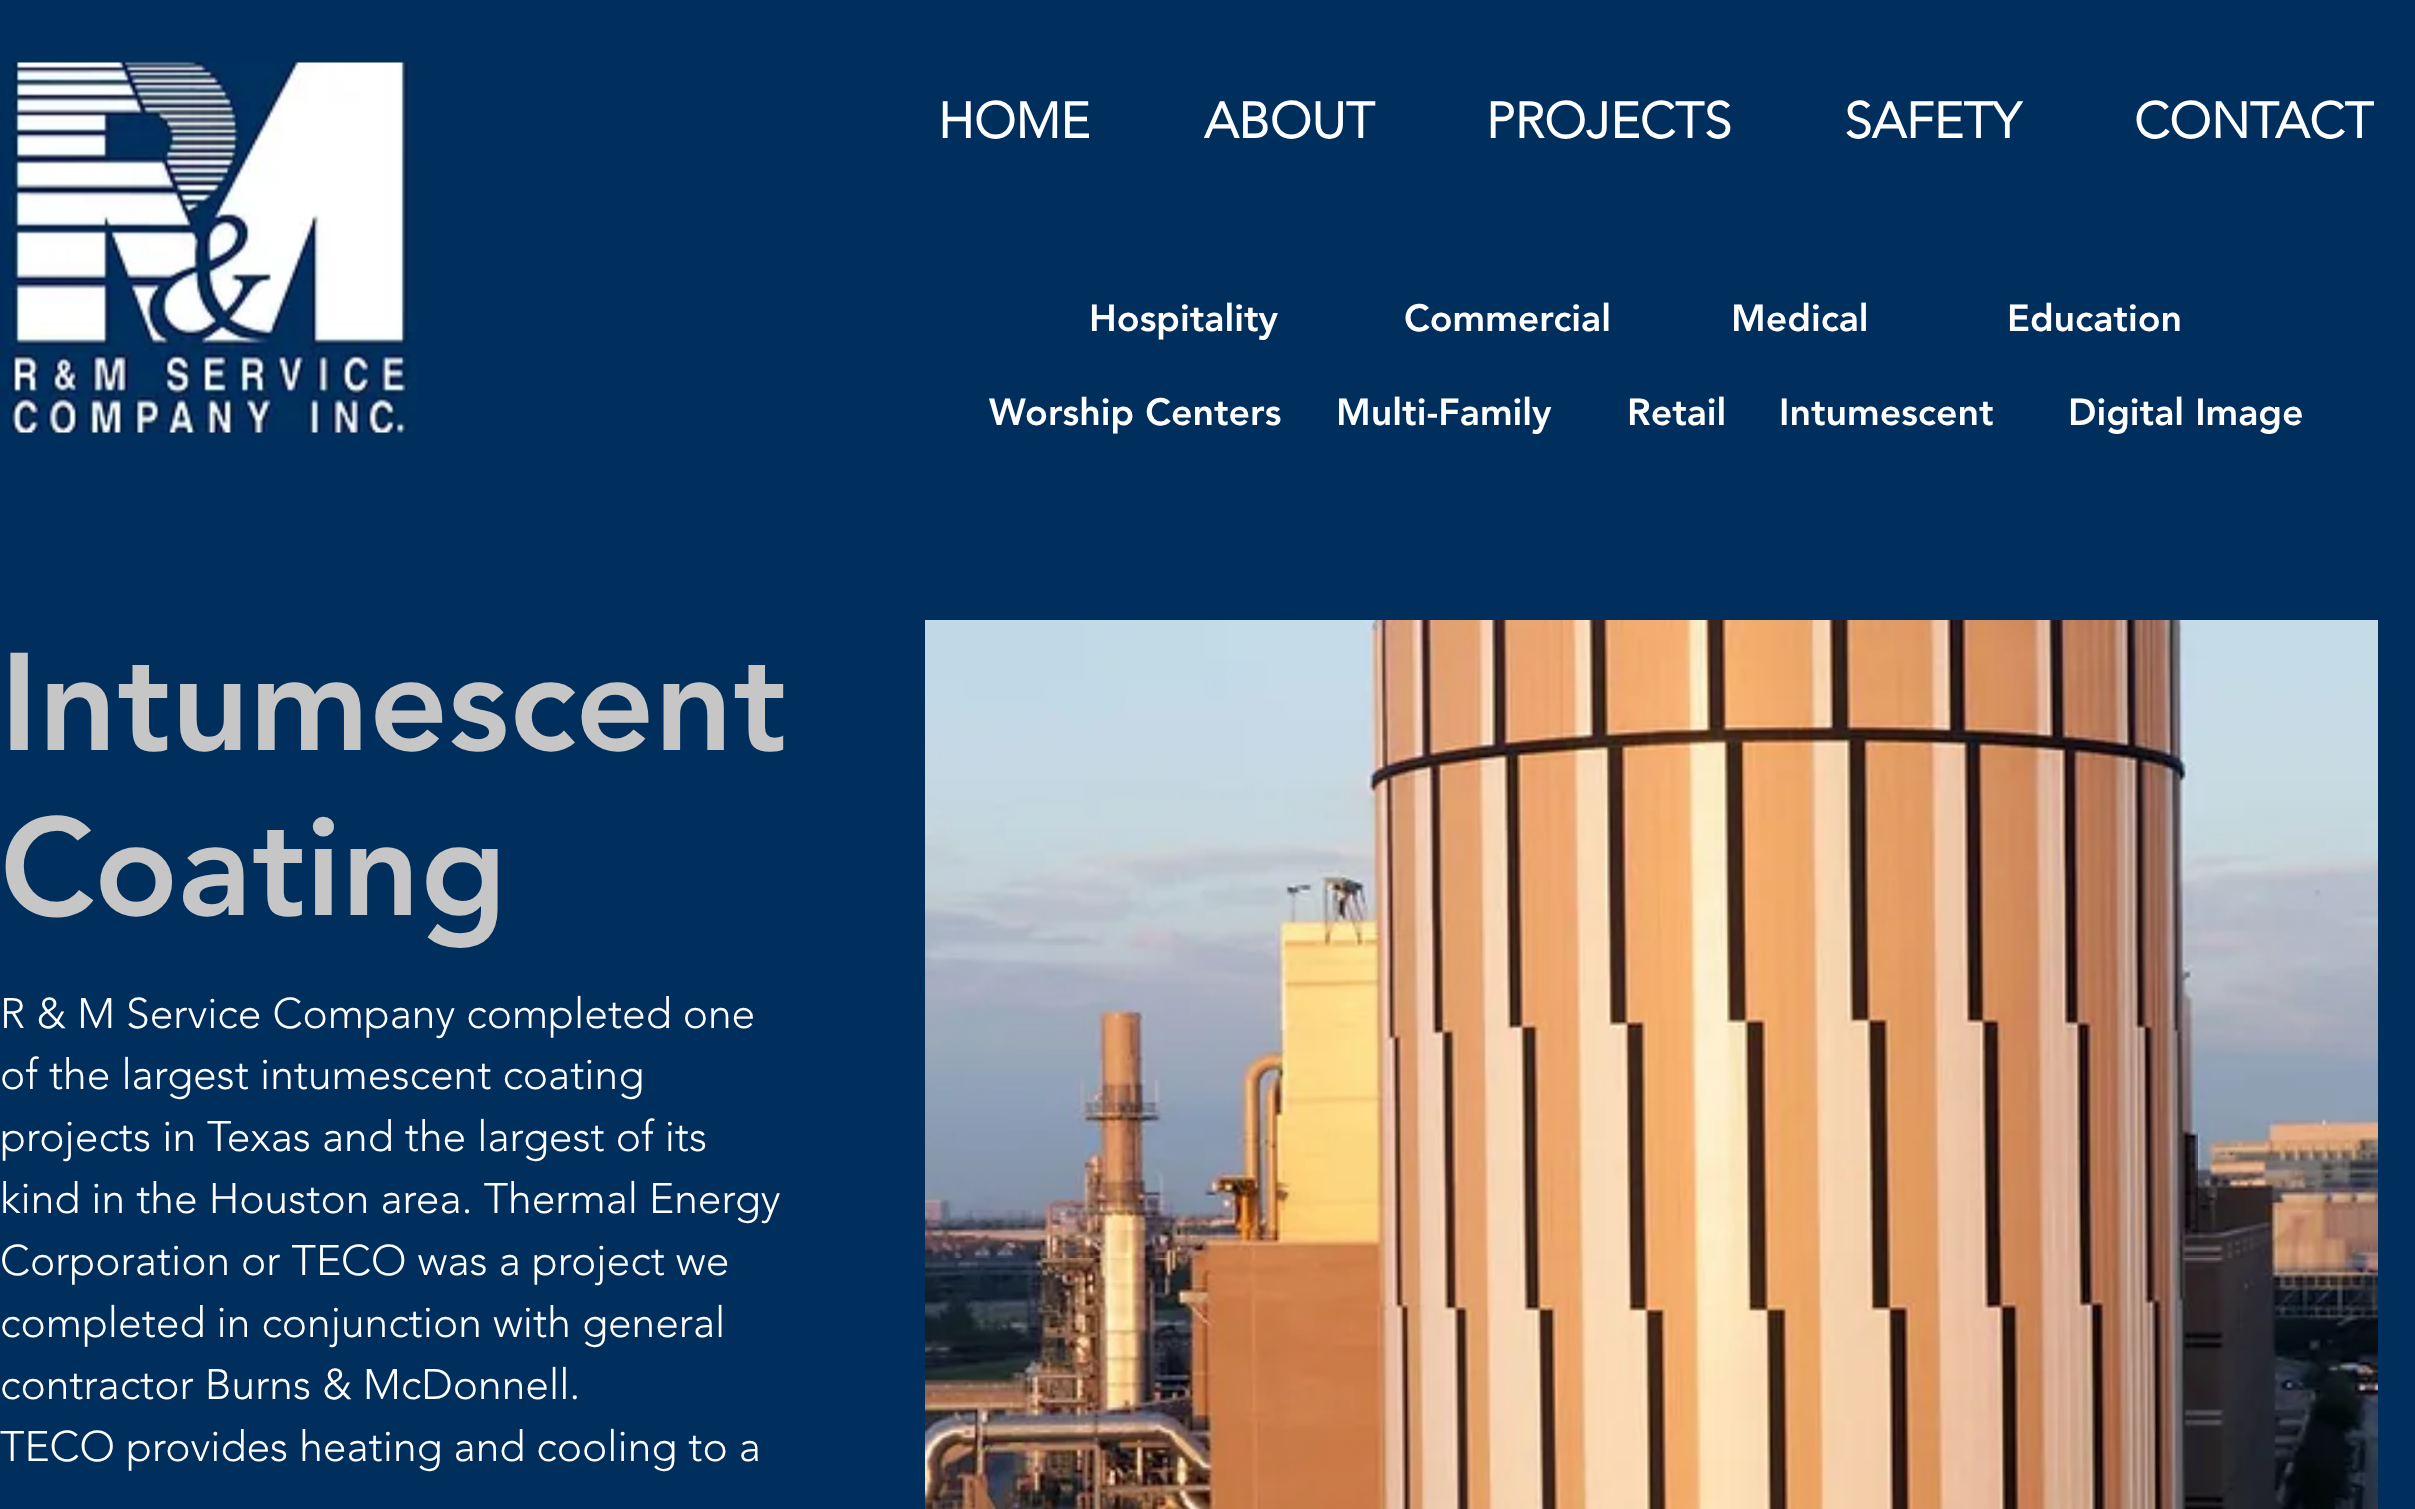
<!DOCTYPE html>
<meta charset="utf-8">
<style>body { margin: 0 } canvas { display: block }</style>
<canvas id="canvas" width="2415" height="1509"></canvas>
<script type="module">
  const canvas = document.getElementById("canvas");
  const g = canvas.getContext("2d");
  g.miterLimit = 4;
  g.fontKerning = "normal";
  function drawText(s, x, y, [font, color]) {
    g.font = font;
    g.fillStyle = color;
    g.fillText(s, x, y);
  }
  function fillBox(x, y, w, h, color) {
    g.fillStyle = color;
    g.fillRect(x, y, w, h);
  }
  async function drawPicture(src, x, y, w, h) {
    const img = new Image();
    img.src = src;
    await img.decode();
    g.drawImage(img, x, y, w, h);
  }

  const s1 = ["bold 50px 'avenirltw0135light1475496'", "#FFFFFF"];
  const s2 = ["900 37.5px 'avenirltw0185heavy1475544'", "#FFFFFF"];
  const s3 = ["900 137.5px 'avenirltw0185heavy1475544'", "#C6C6C6"];
  const s4 = ["300 42.5px 'avenirltw0135light1475496'", "#FFFFFF"];

  fillBox(0, 0, 2415, 1509, "#002E5D");
  await drawPicture("pic1.png", 0, 62, 417, 371);
  drawText("HOME", 938, 138, s1);
  drawText("ABOUT", 1204, 138, s1);
  drawText("PROJECTS", 1486, 138, s1);
  drawText("SAFETY", 1844, 138, s1);
  drawText("CONTACT", 2134, 138, s1);
  drawText("Hospitality", 1089, 331, s2);
  drawText("Commercial", 1404, 331, s2);
  drawText("Medical", 1731, 331, s2);
  drawText("Education", 2007, 331, s2);
  drawText("Worship Centers", 989, 425, s2);
  drawText("Multi-Family", 1336, 425, s2);
  drawText("Retail", 1627, 425, s2);
  drawText("Intumescent", 1779, 425, s2);
  drawText("Digital Image", 2068, 425, s2);
  drawText("Intumescent", 0, 750, s3);
  drawText("Coating", 0, 915, s3);
  await drawPicture("pic2.png", 925, 620, 1453, 889);
  drawText("R & M Service Company completed one", 0, 1028, s4);
  drawText("of the largest intumescent coating", 0, 1089, s4);
  drawText("projects in Texas and the largest of its", 0, 1151, s4);
  drawText("kind in the Houston area. Thermal Energy", 0, 1213, s4);
  drawText("Corporation or TECO was a project we", 0, 1275, s4);
  drawText("completed in conjunction with general", 0, 1337, s4);
  drawText("contractor Burns & McDonnell.", 0, 1399, s4);
  drawText("TECO provides heating and cooling to a", 0, 1461, s4);
</script>
